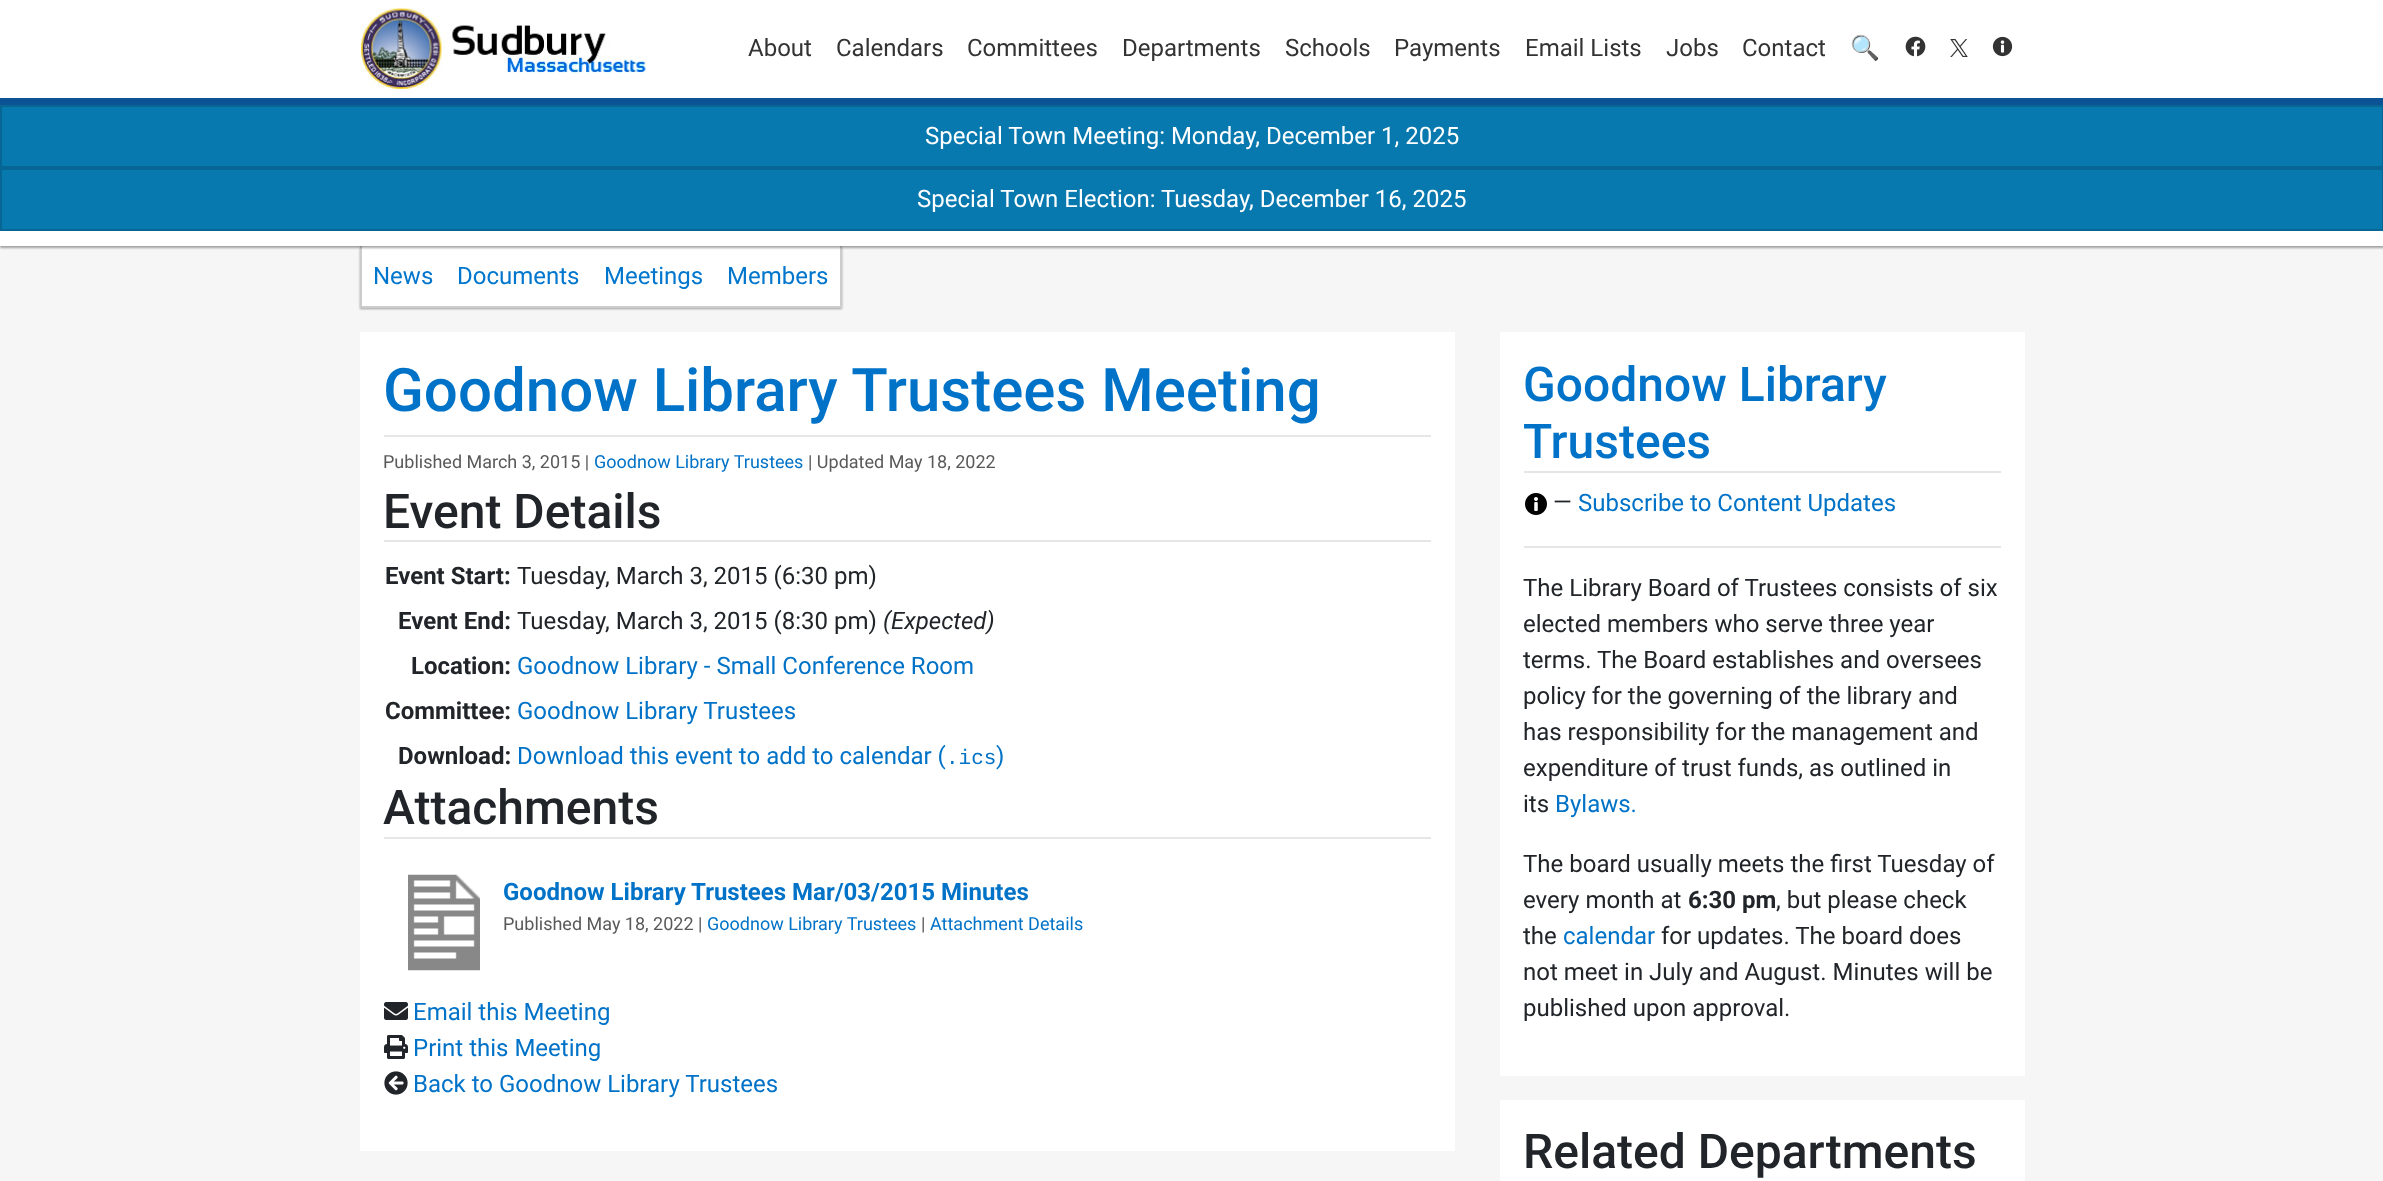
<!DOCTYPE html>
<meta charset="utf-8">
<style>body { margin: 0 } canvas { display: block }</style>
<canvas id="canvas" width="2383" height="1181"></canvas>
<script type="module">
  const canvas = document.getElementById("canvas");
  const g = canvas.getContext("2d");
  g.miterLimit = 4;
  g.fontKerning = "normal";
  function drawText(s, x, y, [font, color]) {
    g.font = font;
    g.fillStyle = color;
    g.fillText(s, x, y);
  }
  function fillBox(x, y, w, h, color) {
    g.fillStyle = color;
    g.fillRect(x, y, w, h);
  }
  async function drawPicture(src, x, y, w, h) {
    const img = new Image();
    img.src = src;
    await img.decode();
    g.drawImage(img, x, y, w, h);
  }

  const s1 = ["24px Roboto", "#333333"];
  const s2 = ["24px Noto Color Emoji", "#333333"];
  const s3 = ["24px Roboto", "#FFFFFF"];
  const s4 = ["24px Roboto", "#0076CD"];
  const s5 = ["500 60px Roboto", "#0072C7"];
  const s6 = ["18px Roboto", "#595959"];
  const s7 = ["18px Roboto", "#0072C7"];
  const s8 = ["500 48px Roboto", "#212529"];
  const s9 = ["bold 24px Roboto", "#212529"];
  const s10 = ["24px Roboto", "#212529"];
  const s11 = ["italic 24px Roboto", "#212529"];
  const s12 = ["24px Roboto", "#0072C7"];
  const s13 = ["21px Liberation Mono", "#0072C7"];
  const s14 = ["bold 24px Roboto", "#0072C7"];
  const s15 = ["500 48px Roboto", "#0072C7"];

  fillBox(0, 0, 2383, 1181, "#F6F6F6");
  fillBox(0, 0, 2383, 98, "#FFFFFF");
  await drawPicture("pic1.png", 360, 7, 287, 82);
  drawText("About", 748, 56, s1);
  drawText("Calendars", 836, 56, s1);
  drawText("Committees", 967, 56, s1);
  drawText("Departments", 1122, 56, s1);
  drawText("Schools", 1285, 56, s1);
  drawText("Payments", 1394, 56, s1);
  drawText("Email Lists", 1525, 56, s1);
  drawText("Jobs", 1666, 56, s1);
  drawText("Contact", 1742, 56, s1);
  drawText("🔍", 1850, 56, s2);
  await drawPicture("pic2.png", 1905, 36, 21, 21);
  await drawPicture("pic3.png", 1950, 39, 18, 18);
  await drawPicture("pic4.png", 1992, 36, 21, 21);
  fillBox(0, 98, 2383, 7, "#0B5394");
  g.fillStyle = "#0879AF";
  g.beginPath();
  g.rect(1, 106, 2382, 61);
  g.fill();
  g.strokeStyle = "#076694";
  g.lineWidth = 2;
  g.stroke();
  drawText("Special Town Meeting: Monday, December 1, 2025", 925, 144, s3);
  g.fillStyle = "#0879AF";
  g.beginPath();
  g.rect(1, 169, 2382, 61);
  g.fill();
  g.stroke();
  drawText("Special Town Election: Tuesday, December 16, 2025", 917, 207, s3);
  g.fillStyle = "rgba(0, 0, 0, 0.35)";
  g.filter = "blur(1px)";
  g.beginPath();
  g.rect(360, 248, 482, 61);
  g.fill();
  g.filter = "none";
  fillBox(362, 246, 478, 60, "#FFFFFF");
  fillBox(840, 246, 2, 62, "#CCCCCC");
  fillBox(360, 306, 482, 2, "#CCCCCC");
  fillBox(360, 246, 2, 62, "#CCCCCC");
  g.fillStyle = "rgba(0, 0, 0, 0.35)";
  g.filter = "blur(1px)";
  g.beginPath();
  g.rect(0, 233, 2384, 15);
  g.fill();
  g.filter = "none";
  fillBox(0, 231, 2383, 15, "#FFFFFF");
  drawText("News", 373, 284, s4);
  drawText("Documents", 457, 284, s4);
  drawText("Meetings", 604, 284, s4);
  drawText("Members", 727, 284, s4);
  fillBox(360, 332, 1095, 819, "#FFFFFF");
  fillBox(384, 435, 1047, 2, "#E6E6E6");
  drawText("Goodnow Library Trustees Meeting", 383, 411, s5);
  drawText("Published March 3, 2015 |", 383, 468, s6);
  drawText("Goodnow Library Trustees", 594, 468, s7);
  drawText("| Updated May 18, 2022", 808, 468, s6);
  fillBox(384, 540, 1047, 2, "#E6E6E6");
  drawText("Event Details", 383, 528, s8);
  drawText("Event Start:", 385, 584, s9);
  drawText("Tuesday, March 3, 2015 (6:30 pm)", 517, 584, s10);
  drawText("Event End:", 398, 629, s9);
  drawText("Tuesday, March 3, 2015 (8:30 pm)", 517, 629, s10);
  drawText("(Expected)", 883, 629, s11);
  drawText("Location:", 411, 674, s9);
  drawText("Goodnow Library - Small Conference Room", 517, 674, s12);
  drawText("Committee:", 385, 719, s9);
  drawText("Goodnow Library Trustees", 517, 719, s12);
  drawText("Download:", 398, 764, s9);
  drawText("Download this event to add to calendar (", 517, 764, s12);
  drawText(".ics", 946, 764, s13);
  drawText(")", 996, 764, s12);
  fillBox(384, 837, 1047, 2, "#E6E6E6");
  drawText("Attachments", 383, 824, s8);
  await drawPicture("pic5.png", 408, 874, 72, 97);
  drawText("Goodnow Library Trustees Mar/03/2015 Minutes", 503, 900, s14);
  drawText("Published May 18, 2022 |", 503, 930, s6);
  drawText("Goodnow Library Trustees", 707, 930, s7);
  drawText("|", 921, 930, s6);
  drawText("Attachment Details", 930, 930, s7);
  await drawPicture("pic6.png", 384, 1002, 24, 18);
  drawText("Email this Meeting", 413, 1020, s12);
  await drawPicture("pic7.png", 384, 1035, 24, 24);
  drawText("Print this Meeting", 413, 1056, s12);
  await drawPicture("pic8.png", 384, 1071, 24, 24);
  drawText("Back to Goodnow Library Trustees", 413, 1092, s12);
  fillBox(1500, 332, 525, 744, "#FFFFFF");
  fillBox(1524, 471, 477, 2, "#E6E6E6");
  drawText("Goodnow Library", 1523, 401, s15);
  drawText("Trustees", 1523, 458, s15);
  await drawPicture("pic9.png", 1525, 493, 22, 22);
  drawText("—", 1553, 510, s10);
  drawText("Subscribe to Content Updates", 1578, 511, s12);
  fillBox(1524, 546, 477, 2, "#E6E6E6");
  drawText("The Library Board of Trustees consists of six", 1523, 596, s10);
  drawText("elected members who serve three year", 1523, 632, s10);
  drawText("terms. The Board establishes and oversees", 1523, 668, s10);
  drawText("policy for the governing of the library and", 1523, 704, s10);
  drawText("has responsibility for the management and", 1523, 740, s10);
  drawText("expenditure of trust funds, as outlined in", 1523, 776, s10);
  drawText("its", 1523, 812, s10);
  drawText("Bylaws.", 1555, 812, s12);
  drawText("The board usually meets the first Tuesday of", 1523, 872, s10);
  drawText("every month at", 1523, 908, s10);
  drawText("6:30 pm", 1688, 908, s9);
  drawText(", but please check", 1776, 908, s10);
  drawText("the", 1523, 944, s10);
  drawText("calendar", 1563, 944, s12);
  drawText("for updates. The board does", 1661, 944, s10);
  drawText("not meet in July and August. Minutes will be", 1523, 980, s10);
  drawText("published upon approval.", 1523, 1016, s10);
  fillBox(1500, 1100, 525, 81, "#FFFFFF");
  drawText("Related Departments", 1523, 1168, s8);
</script>
